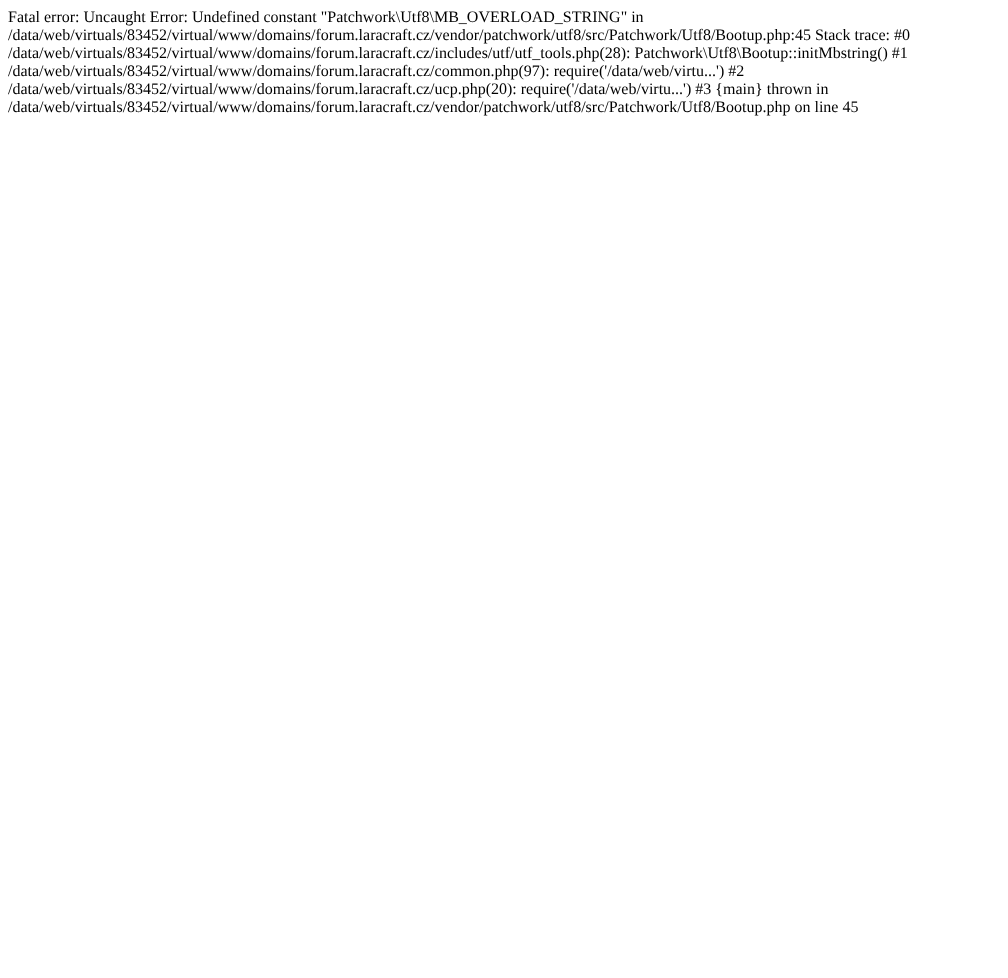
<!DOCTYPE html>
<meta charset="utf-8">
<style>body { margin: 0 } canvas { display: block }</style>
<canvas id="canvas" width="1008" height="978"></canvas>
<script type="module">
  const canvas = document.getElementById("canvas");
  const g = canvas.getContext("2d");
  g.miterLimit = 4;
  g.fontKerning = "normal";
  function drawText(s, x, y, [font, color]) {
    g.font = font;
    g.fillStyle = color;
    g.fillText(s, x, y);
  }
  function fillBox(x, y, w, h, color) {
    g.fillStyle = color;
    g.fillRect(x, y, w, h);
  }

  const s1 = ["16px Liberation Serif", "#000000"];

  fillBox(0, 0, 1008, 978, "#FFFFFF");
  drawText("Fatal error: Uncaught Error: Undefined constant \"Patchwork\\Utf8\\MB_OVERLOAD_STRING\" in", 8, 22, s1);
  drawText("/data/web/virtuals/83452/virtual/www/domains/forum.laracraft.cz/vendor/patchwork/utf8/src/Patchwork/Utf8/Bootup.php:45 Stack trace: #0", 8, 40, s1);
  drawText("/data/web/virtuals/83452/virtual/www/domains/forum.laracraft.cz/includes/utf/utf_tools.php(28): Patchwork\\Utf8\\Bootup::initMbstring() #1", 8, 58, s1);
  drawText("/data/web/virtuals/83452/virtual/www/domains/forum.laracraft.cz/common.php(97): require('/data/web/virtu...') #2", 8, 76, s1);
  drawText("/data/web/virtuals/83452/virtual/www/domains/forum.laracraft.cz/ucp.php(20): require('/data/web/virtu...') #3 {main} thrown in", 8, 94, s1);
  drawText("/data/web/virtuals/83452/virtual/www/domains/forum.laracraft.cz/vendor/patchwork/utf8/src/Patchwork/Utf8/Bootup.php on line 45", 8, 112, s1);
</script>
